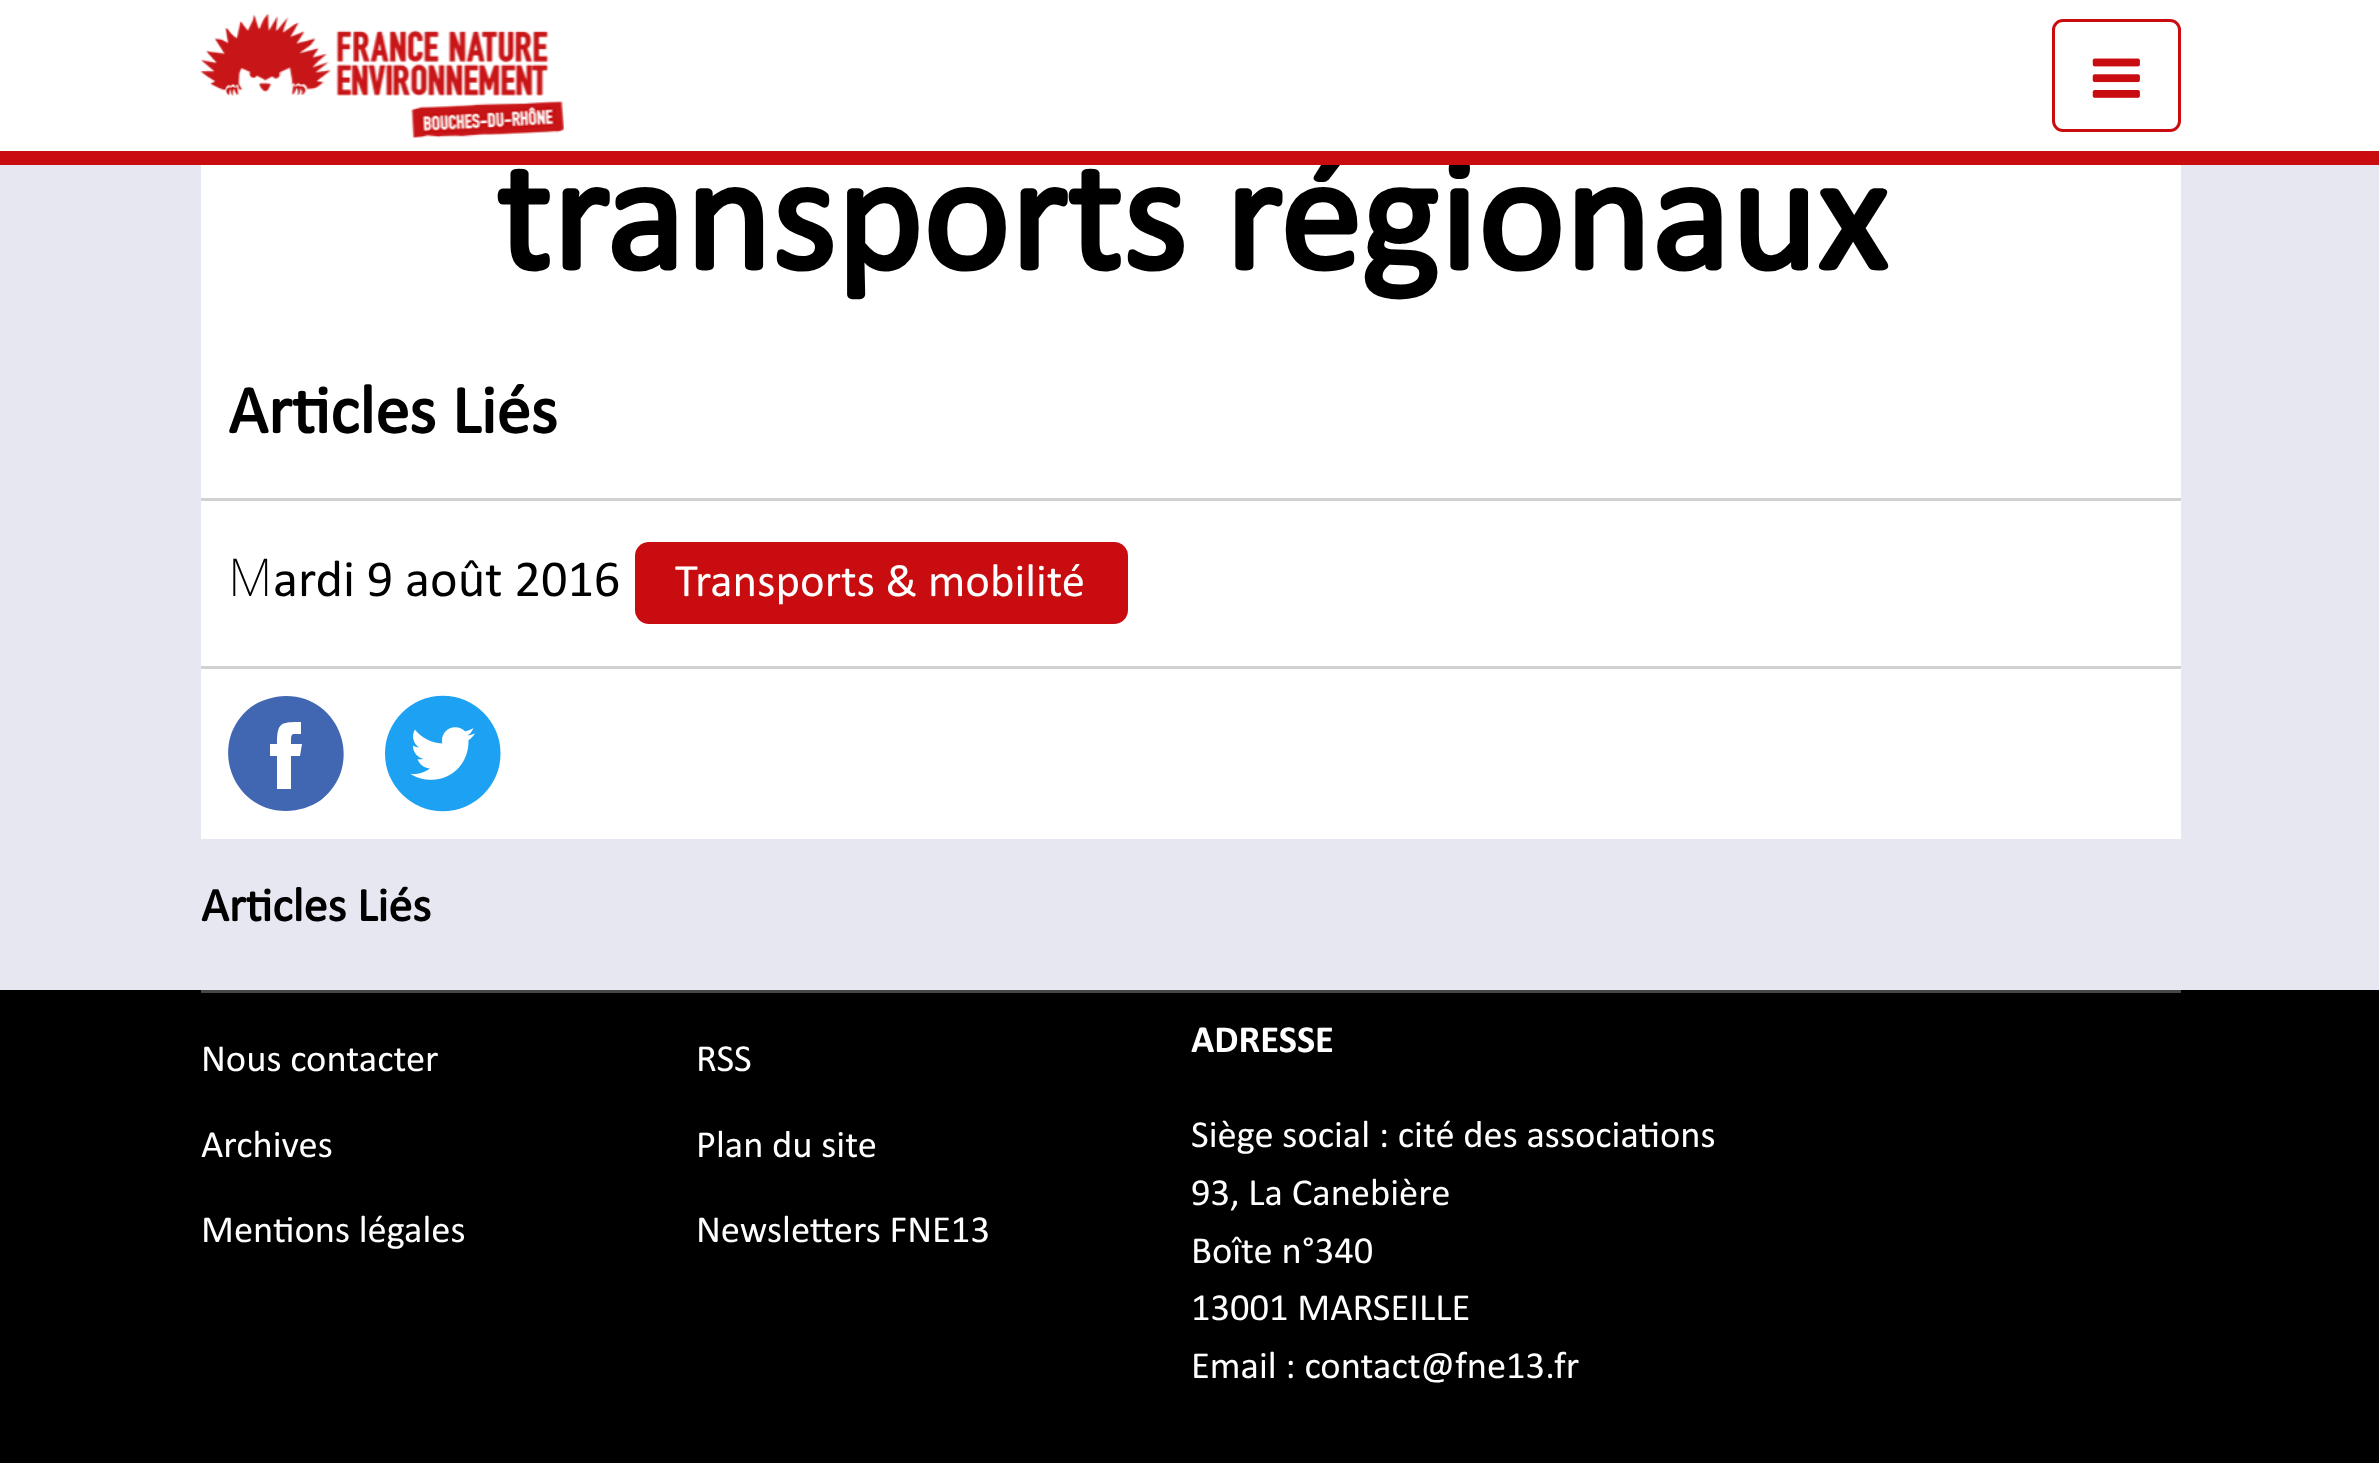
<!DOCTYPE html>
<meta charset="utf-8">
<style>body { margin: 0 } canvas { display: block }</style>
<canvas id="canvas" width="2379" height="1463"></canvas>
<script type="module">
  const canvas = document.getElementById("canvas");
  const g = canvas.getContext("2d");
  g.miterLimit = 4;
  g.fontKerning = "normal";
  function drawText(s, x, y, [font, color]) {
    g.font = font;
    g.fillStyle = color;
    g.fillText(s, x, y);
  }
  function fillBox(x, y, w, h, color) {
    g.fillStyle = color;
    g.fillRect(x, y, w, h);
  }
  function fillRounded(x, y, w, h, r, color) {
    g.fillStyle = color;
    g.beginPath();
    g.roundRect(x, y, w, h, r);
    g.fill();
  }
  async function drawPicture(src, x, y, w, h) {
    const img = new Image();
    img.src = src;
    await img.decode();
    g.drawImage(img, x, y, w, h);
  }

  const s1 = ["bold 165px 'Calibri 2'", "#000000"];
  const s2 = ["bold 68.75px 'Calibri 2'", "#000000"];
  const s3 = ["200 52.25px Noto Sans", "#000000"];
  const s4 = ["52.25px Calibri", "#000000"];
  const s5 = ["46.75px Calibri", "#FFFFFF"];
  const s6 = ["bold 48px 'Calibri 2'", "#000000"];
  const s7 = ["38.5px Calibri", "#FFFFFF"];
  const s8 = ["bold 38.5px Calibri", "#FFFFFF"];

  fillBox(0, 0, 2379, 1463, "#E7E7F2");
  fillBox(0, 0, 2379, 151, "#FFFFFF");
  fillBox(201, 165, 1980, 674, "#FFFFFF");
  drawText("transports régionaux", 495, 270, s1);
  fillBox(0, 151, 2379, 14, "#C90C0F");
  await drawPicture("pic1.png", 200, 13, 364, 125);
  g.beginPath();
  g.roundRect(2053.5, 20.5, 126, 110, 9.5);
  g.strokeStyle = "#C90C0F";
  g.lineWidth = 3;
  g.stroke();
  await drawPicture("pic2.png", 2092, 58, 48, 40);
  drawText("Articles Liés", 228, 433, s2);
  fillBox(201, 498, 1980, 3, "#D1D1D1");
  fillBox(201, 666, 1980, 3, "#D1D1D1");
  drawText("M", 228, 596, s3);
  drawText("ardi 9 août 2016", 273, 596, s4);
  fillRounded(635, 542, 493, 82, 14, "#C90C0F");
  drawText("Transports & mobilité", 675, 596, s5);
  g.fillStyle = "#4267B2";
  g.beginPath();
  g.moveTo(286, 696);
  g.bezierCurveTo(274, 696, 261, 700, 251, 707);
  g.bezierCurveTo(207, 741, 231, 811, 286, 811);
  g.bezierCurveTo(298, 811, 311, 807, 321, 800);
  g.bezierCurveTo(365, 766, 341, 696, 286, 696);
  g.closePath();
  g.moveTo(300, 756);
  g.lineTo(291, 756);
  g.lineTo(291, 789);
  g.lineTo(277, 789);
  g.lineTo(277, 756);
  g.lineTo(270, 756);
  g.lineTo(270, 744);
  g.lineTo(277, 744);
  g.bezierCurveTo(277, 722, 281, 722, 301, 722);
  g.lineTo(301, 734);
  g.bezierCurveTo(291, 734, 291, 732, 291, 744);
  g.lineTo(302, 744);
  g.closePath();
  g.fill();
  await drawPicture("pic3.png", 385, 695, 116, 117);
  drawText("Articles Liés", 201, 921, s6);
  fillBox(0, 990, 2379, 473, "#000000");
  fillBox(201, 990, 1980, 3, "#474747");
  drawText("Nous contacter", 201, 1071, s7);
  drawText("Archives", 201, 1157, s7);
  drawText("Mentions légales", 201, 1242, s7);
  drawText("RSS", 696, 1071, s7);
  drawText("Plan du site", 696, 1157, s7);
  drawText("Newsletters FNE13", 696, 1242, s7);
  drawText("ADRESSE", 1191, 1052, s8);
  drawText("Siège social : cité des associations", 1191, 1147, s7);
  drawText("93, La Canebière", 1191, 1205, s7);
  drawText("Boîte n°340", 1191, 1263, s7);
  drawText("13001 MARSEILLE", 1191, 1320, s7);
  drawText("Email : contact@fne13.fr", 1191, 1378, s7);
</script>
